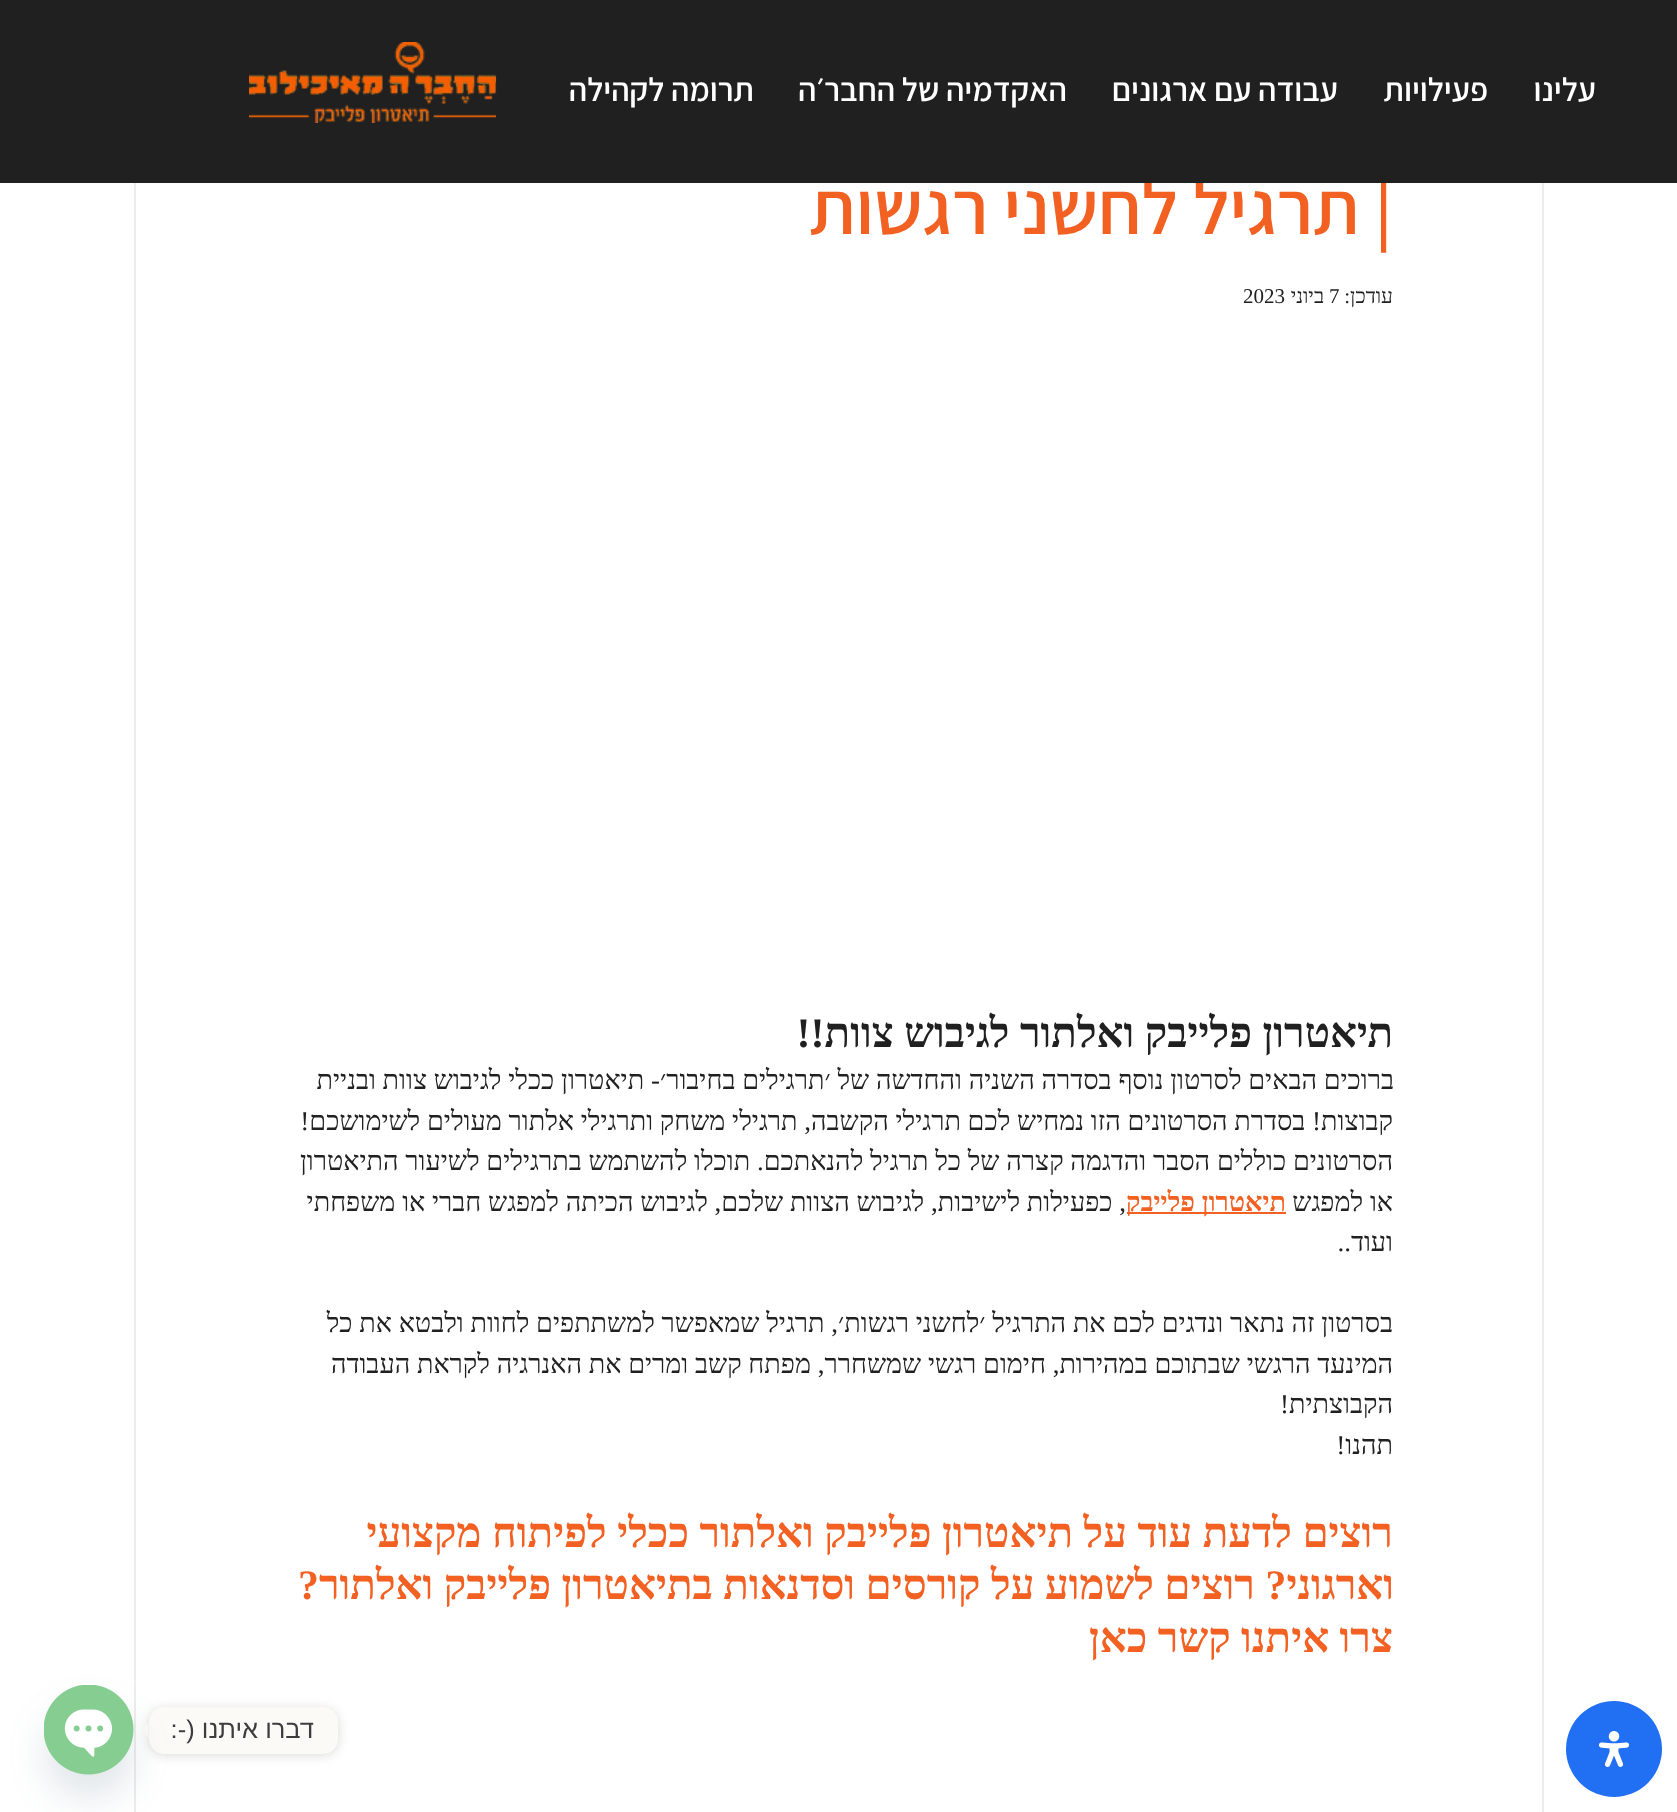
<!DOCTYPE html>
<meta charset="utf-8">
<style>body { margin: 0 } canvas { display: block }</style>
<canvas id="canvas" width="1677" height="1812"></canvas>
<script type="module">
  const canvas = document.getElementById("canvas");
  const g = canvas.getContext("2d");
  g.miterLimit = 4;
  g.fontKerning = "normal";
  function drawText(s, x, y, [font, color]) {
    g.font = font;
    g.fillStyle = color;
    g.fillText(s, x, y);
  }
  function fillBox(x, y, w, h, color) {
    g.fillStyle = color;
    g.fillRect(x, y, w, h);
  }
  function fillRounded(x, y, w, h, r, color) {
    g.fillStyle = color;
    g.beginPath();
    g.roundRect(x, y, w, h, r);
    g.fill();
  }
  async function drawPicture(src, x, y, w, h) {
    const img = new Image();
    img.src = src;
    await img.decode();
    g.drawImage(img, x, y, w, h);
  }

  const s1 = ["600 75px Assistant", "#F26022"];
  const s2 = ["600 33px Assistant", "#FFFFFF"];
  const s3 = ["21px Liberation Serif", "#202020"];
  const s4 = ["bold 42px Liberation Serif", "#202020"];
  const s5 = ["27px Liberation Serif", "#202020"];
  const s6 = ["bold 27px Liberation Serif", "#F26022"];
  const s7 = ["bold 42px Liberation Serif", "#F26022"];
  const s8 = ["25.5px Liberation Sans", "#3D3D3D"];

  fillBox(0, 0, 1677, 1812, "#FFFFFF");
  g.strokeStyle = "#EEECEC";
  g.lineWidth = 2;
  g.strokeRect(135, -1, 1408, 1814);
  g.direction = "rtl";
  drawText("| תרגיל", 1393, 234, s1);
  drawText("לחשני רגשות", 1178, 234, s1);
  fillBox(0, 0, 1677, 183, "#202020");
  drawText("עלינו", 1596, 101, s2);
  drawText("פעילויות", 1488, 101, s2);
  drawText("עבודה עם ארגונים", 1338, 101, s2);
  drawText("האקדמיה של החבר׳ה", 1067, 101, s2);
  drawText("תרומה לקהילה", 754, 101, s2);
  await drawPicture("pic1.png", 249, 42, 248, 81);
  drawText("עודכן:", 1393, 303, s3);
  g.direction = "ltr";
  drawText("7", 1329, 303, s3);
  g.direction = "rtl";
  drawText("ביוני", 1324, 303, s3);
  g.direction = "ltr";
  drawText("2023", 1243, 303, s3);
  g.direction = "rtl";
  drawText("ת", 1393, 1047, s4);
  drawText("י", 1368, 1047, s4);
  drawText("אטרון", 1357, 1047, s4);
  drawText("פלייבק ואלתור לגיבוש צוות!!", 1252, 1047, s4);
  drawText("ברוכים הבאים לסרטון נוסף בסדרה השניה והחדשה של ׳תרגילים בחיבור׳- תיאטרון ככלי לגיבוש צוות ובניית", 1394, 1089, s5);
  drawText("קבוצות! בסדרת הסרטונים הזו נמחיש לכם תרגילי הקשבה, תרגילי משחק ותרגילי אלתור מעולים לשימושכם!", 1393, 1130, s5);
  drawText("הסרטונים כוללים הסבר והדגמה קצרה של כל תרגיל להנאתכם. תוכלו להשתמש בתרגילים לשיעור התיאטרון", 1393, 1170, s5);
  drawText("או למפגש", 1393, 1211, s5);
  fillBox(1127, 1212, 159, 2, "#F26022");
  drawText("תיאטרון פלייבק", 1286, 1211, s6);
  drawText(", כפעילות לישיבות, לגיבוש הצוות שלכם, לגיבוש הכיתה למפגש חברי או משפחתי", 1126, 1211, s5);
  drawText("ועוד..", 1393, 1251, s5);
  drawText("בסרטון זה נתאר ונדגים לכם את התרגיל ׳לחשני רגשות׳, תרגיל שמאפשר למשתתפים לחוות ולבטא את כל", 1393, 1332, s5);
  drawText("המינעד הרגשי שבתוכם במהירות, חימום רגשי שמשחרר, מפתח קשב ומרים את האנרגיה לקראת העבודה", 1393, 1373, s5);
  drawText("הקבוצתית!", 1393, 1413, s5);
  drawText("תהנו!", 1393, 1454, s5);
  drawText("רוצים לדעת עוד על תיאטרון פלייבק ואלתור ככלי לפיתוח מקצועי", 1393, 1547, s7);
  drawText("וארגוני? רוצים לשמוע על קורסים וסדנאות בתיאטרון פלייבק ואלתור?", 1394, 1599, s7);
  drawText("צרו איתנו קשר כאן", 1393, 1652, s7);
  g.fillStyle = "#216FF3";
  g.beginPath();
  g.arc(1614, 1749, 48, 0, Math.PI * 2);
  g.fill();
  await drawPicture("pic2.png", 1598, 1731, 32, 36);
  g.fillStyle = "rgba(0, 0, 0, 0.15)";
  g.filter = "blur(6px)";
  g.beginPath();
  g.roundRect(149, 1709, 189, 46, 15);
  g.fill();
  g.filter = "none";
  fillRounded(149, 1707, 189, 47, 15, "#FCFAF7");
  drawText("דברו איתנו (-:", 314, 1738, s8);
  g.fillStyle = "#FCFAF7";
  g.beginPath();
  g.moveTo(148.5, 1723);
  g.lineTo(148.5, 1738);
  g.lineTo(141, 1730);
  g.closePath();
  g.fill();
  g.fillStyle = "rgba(73, 104, 126, 0.16)";
  g.filter = "blur(18px)";
  g.beginPath();
  g.roundRect(44, 1709, 90, 90, 45);
  g.fill();
  g.filter = "none";
  await drawPicture("pic3.png", 44, 1685, 90, 90);
</script>
